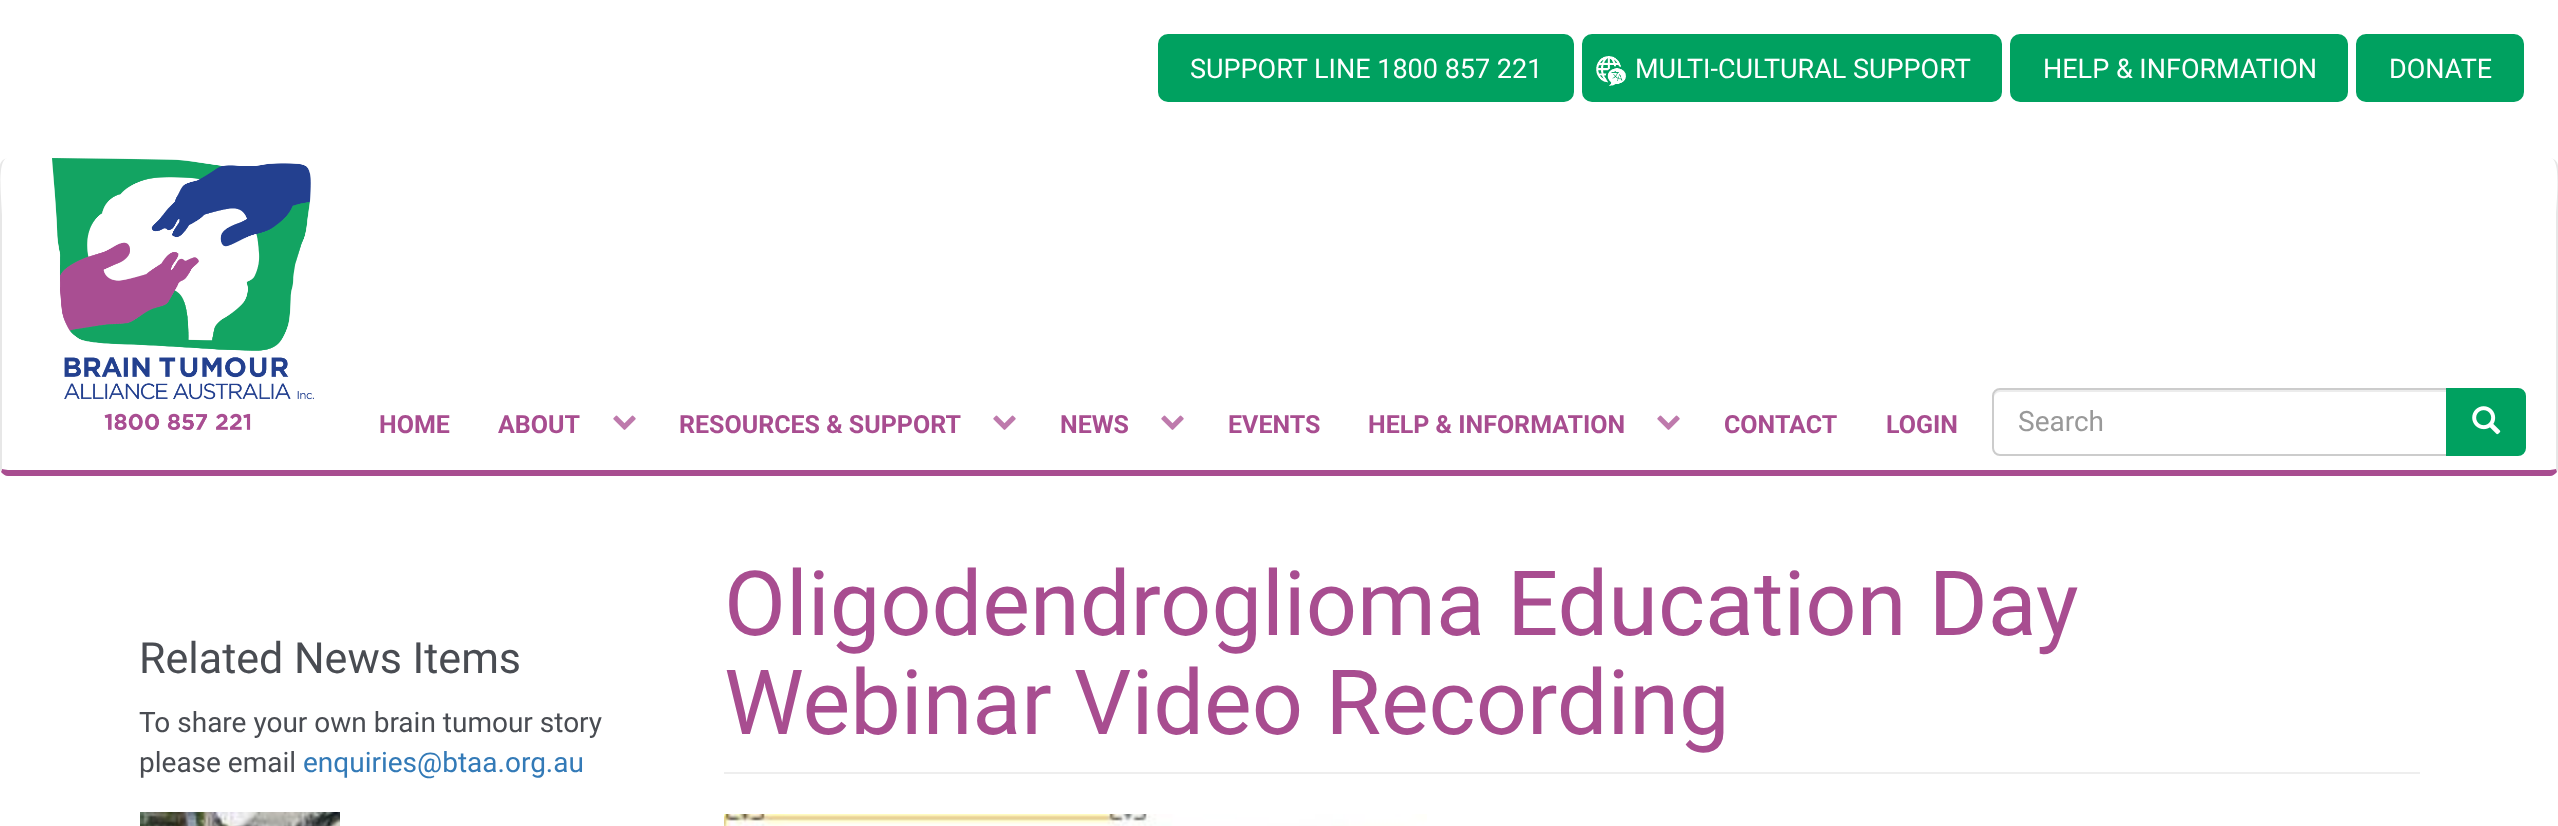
<!DOCTYPE html>
<meta charset="utf-8">
<style>body { margin: 0 } canvas { display: block }</style>
<canvas id="canvas" width="2558" height="826"></canvas>
<script type="module">
  const canvas = document.getElementById("canvas");
  const g = canvas.getContext("2d");
  g.miterLimit = 4;
  g.fontKerning = "normal";
  function drawText(s, x, y, [font, color]) {
    g.font = font;
    g.fillStyle = color;
    g.fillText(s, x, y);
  }
  function fillBox(x, y, w, h, color) {
    g.fillStyle = color;
    g.fillRect(x, y, w, h);
  }
  async function drawPicture(src, x, y, w, h) {
    const img = new Image();
    img.src = src;
    await img.decode();
    g.drawImage(img, x, y, w, h);
  }

  const s1 = ["27px Roboto", "#FFFFFF"];
  const s2 = ["bold 25px Roboto", "#A84D90"];
  const s3 = ["28px Roboto", "#999999"];
  const s4 = ["43px Roboto", "#494C52"];
  const s5 = ["28px Roboto", "#494C52"];
  const s6 = ["28px Roboto", "#337AB7"];
  const s7 = ["90px Roboto", "#A84D90"];

  fillBox(0, 0, 2558, 826, "#FFFFFF");
  g.fillStyle = "#00A160";
  g.beginPath();
  g.roundRect(1159, 35, 414, 66, 9);
  g.fill();
  g.strokeStyle = "#00A160";
  g.lineWidth = 2;
  g.stroke();
  drawText("SUPPORT LINE 1800 857 221", 1190, 78, s1);
  g.fillStyle = "#00A160";
  g.beginPath();
  g.roundRect(1583, 35, 418, 66, 9);
  g.fill();
  g.stroke();
  await drawPicture("pic1.png", 1596, 56, 30, 30);
  drawText("MULTI-CULTURAL SUPPORT", 1635, 78, s1);
  g.fillStyle = "#00A160";
  g.beginPath();
  g.roundRect(2011, 35, 336, 66, 9);
  g.fill();
  g.stroke();
  drawText("HELP & INFORMATION", 2043, 78, s1);
  g.fillStyle = "#00A160";
  g.beginPath();
  g.roundRect(2357, 35, 166, 66, 9);
  g.fill();
  g.stroke();
  drawText("DONATE", 2389, 78, s1);
  g.fillStyle = "#E7E7E7";
  g.beginPath();
  g.moveTo(2558, 166);
  g.bezierCurveTo(2558, 162, 2554, 158, 2550, 158);
  g.bezierCurveTo(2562, 158, 2556, 203, 2556, 216);
  g.lineTo(2556, 468);
  g.lineTo(2556, 469);
  g.lineTo(2557, 472);
  g.bezierCurveTo(2558, 471, 2558, 469, 2558, 468);
  g.closePath();
  g.fill();
  g.fillStyle = "#A84D90";
  g.beginPath();
  g.moveTo(2, 469);
  g.bezierCurveTo(3, 469, 6, 470, 8, 470);
  g.lineTo(2550, 470);
  g.bezierCurveTo(2552, 470, 2555, 469, 2556, 469);
  g.lineTo(2557, 472);
  g.bezierCurveTo(2555, 474, 2553, 476, 2550, 476);
  g.lineTo(8, 476);
  g.bezierCurveTo(5, 476, 3, 474, 1, 472);
  g.closePath();
  g.fill();
  g.fillStyle = "#E7E7E7";
  g.beginPath();
  g.moveTo(8, 158);
  g.bezierCurveTo(4, 158, 0, 162, 0, 166);
  g.lineTo(0, 468);
  g.bezierCurveTo(0, 469, 0, 471, 1, 472);
  g.lineTo(2, 469);
  g.lineTo(2, 468);
  g.lineTo(2, 216);
  g.bezierCurveTo(2, 203, -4, 158, 8, 158);
  g.closePath();
  g.fill();
  await drawPicture("pic2.png", 52, 158, 262, 272);
  drawText("HOME", 379, 433, s2);
  drawText("ABOUT", 498, 433, s2);
  await drawPicture("pic3.png", 613, 415, 23, 15);
  drawText("RESOURCES & SUPPORT", 679, 433, s2);
  await drawPicture("pic3.png", 993, 415, 23, 15);
  drawText("NEWS", 1060, 433, s2);
  await drawPicture("pic3.png", 1161, 415, 23, 15);
  drawText("EVENTS", 1228, 433, s2);
  drawText("HELP & INFORMATION", 1368, 433, s2);
  await drawPicture("pic3.png", 1657, 415, 23, 15);
  drawText("CONTACT", 1724, 433, s2);
  drawText("LOGIN", 1886, 433, s2);
  g.fillStyle = "#ECECEC";
  g.beginPath();
  g.moveTo(2000, 392);
  g.lineTo(2446, 392);
  g.lineTo(2446, 390);
  g.lineTo(2000, 390);
  g.bezierCurveTo(1995, 390, 1994, 394, 1994, 398);
  g.bezierCurveTo(1994, 395, 1997, 392, 2000, 392);
  g.closePath();
  g.fill();
  g.beginPath();
  g.roundRect(1993, 389, 454, 66, [7, 0, 0, 7]);
  g.strokeStyle = "#CCCCCC";
  g.stroke();
  drawText("Search", 2018, 431, s3);
  g.fillStyle = "#00A160";
  g.beginPath();
  g.roundRect(2447, 389, 78, 66, [0, 7, 7, 0]);
  g.fill();
  g.strokeStyle = "#00A160";
  g.stroke();
  await drawPicture("pic4.png", 2472, 406, 29, 29);
  drawText("Related News Items", 139, 673, s4);
  drawText("To share your own brain tumour story", 139, 732, s5);
  drawText("please email", 139, 772, s5);
  drawText("enquiries@btaa.org.au", 303, 772, s6);
  await drawPicture("pic5.png", 140, 812, 200, 14);
  fillBox(724, 772, 1696, 2, "#EEEEEE");
  drawText("Oligodendroglioma Education Day", 724, 635, s7);
  drawText("Webinar Video Recording", 724, 734, s7);
  await drawPicture("pic6.png", 724, 814, 703, 12);
</script>
